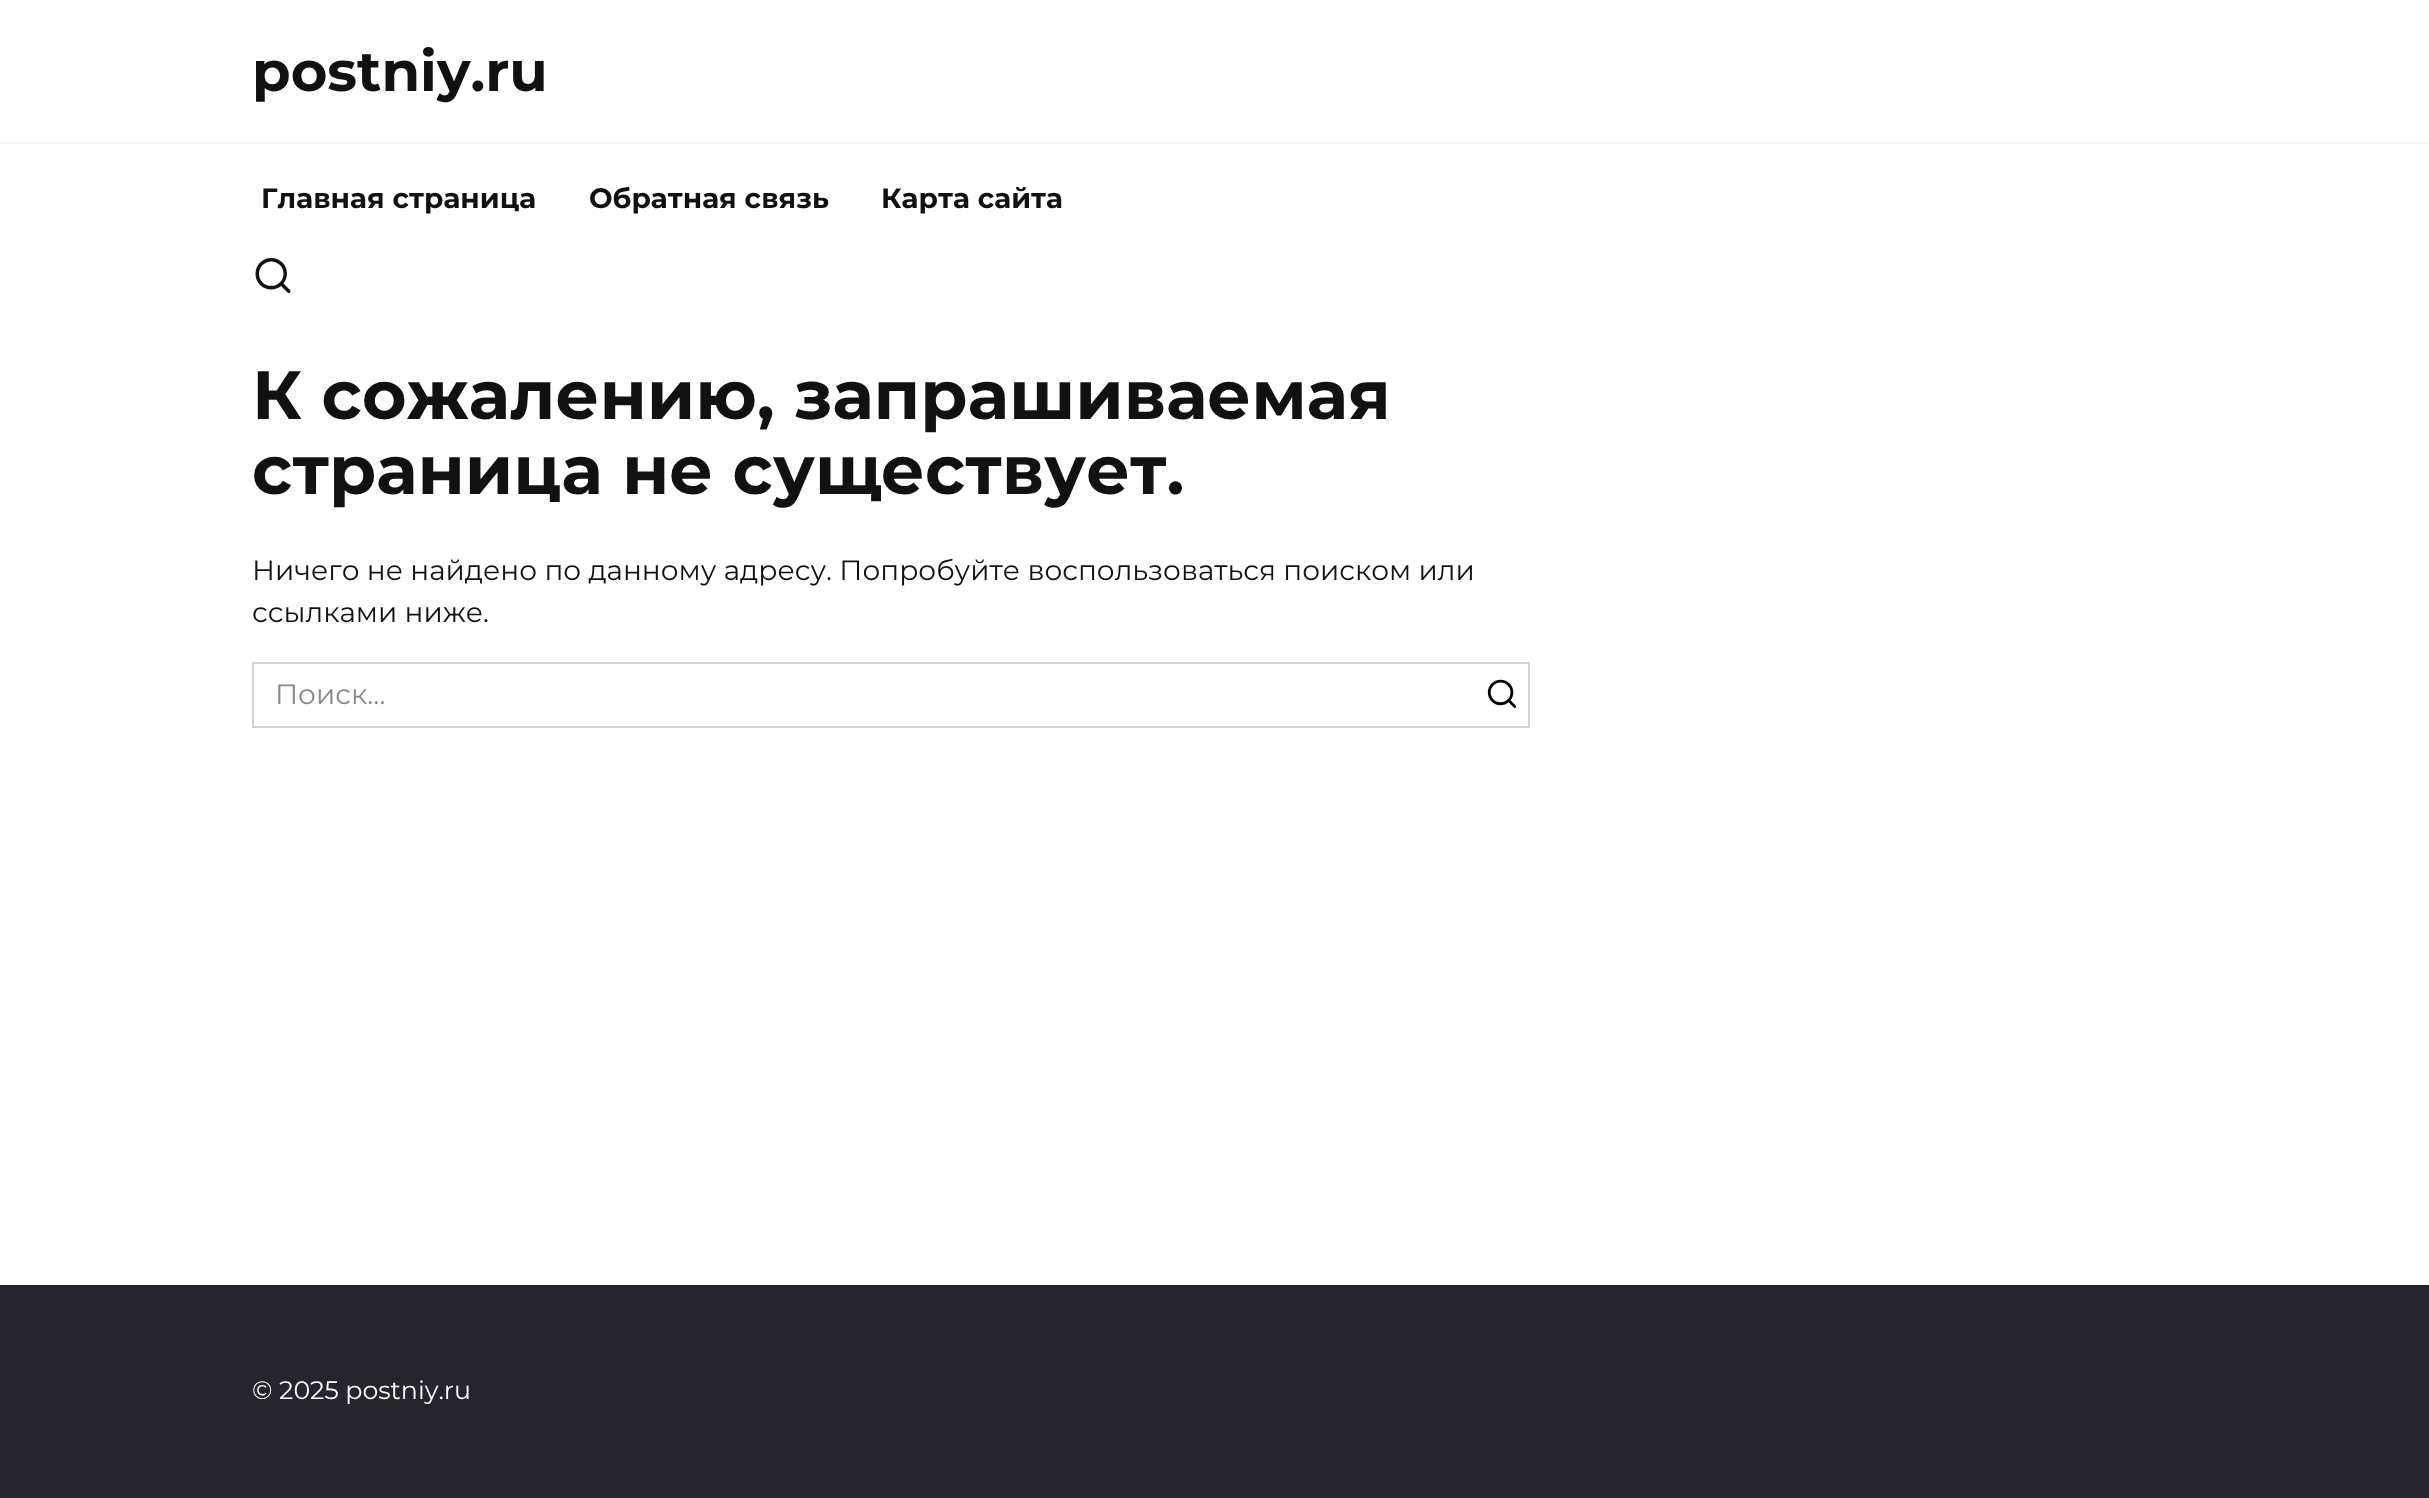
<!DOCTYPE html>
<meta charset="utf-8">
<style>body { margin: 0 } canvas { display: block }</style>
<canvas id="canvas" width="2429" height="1498"></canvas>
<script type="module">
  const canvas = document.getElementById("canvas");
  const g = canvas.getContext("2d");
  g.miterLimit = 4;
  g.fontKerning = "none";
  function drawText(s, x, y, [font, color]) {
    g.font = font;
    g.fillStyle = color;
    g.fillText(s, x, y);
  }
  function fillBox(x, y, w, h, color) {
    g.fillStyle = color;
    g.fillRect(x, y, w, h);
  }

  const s1 = ["bold 56px Montserrat", "#111111"];
  const s2 = ["bold 28px Montserrat", "#111111"];
  const s3 = ["42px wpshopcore", "#111111"];
  const s4 = ["bold 68.25px Montserrat", "#111111"];
  const s5 = ["28px Montserrat", "#111111"];
  const s6 = ["28px Montserrat", "#888888"];
  const s7 = ["34px wpshopcore", "#000000"];
  const s8 = ["25.25px Montserrat", "#FFFFFF"];

  fillBox(0, 0, 2429, 1498, "#FFFFFF");
  fillBox(0, 142, 2429, 2, "#F2F5F9");
  drawText("postniy.ru", 252, 91, s1);
  drawText("Главная страница", 261, 208, s2);
  drawText("Обратная связь", 589, 208, s2);
  drawText("Карта сайта", 881, 208, s2);
  drawText("🔍", 252, 293, s3);
  drawText("К сожалению, запрашиваемая", 252, 419, s4);
  drawText("страница не существует.", 252, 494, s4);
  drawText("Ничего не найдено по данному адресу. Попробуйте воспользоваться поиском или", 252, 580, s5);
  drawText("ссылками ниже.", 252, 622, s5);
  g.strokeStyle = "#CED4DA";
  g.lineWidth = 2;
  g.strokeRect(253, 663, 1276, 64);
  drawText("Поиск…", 275, 704, s6);
  drawText("🔍", 1485, 708, s7);
  fillBox(0, 1285, 2429, 213, "#26252D");
  drawText("© 2025 postniy.ru", 252, 1399, s8);
</script>
